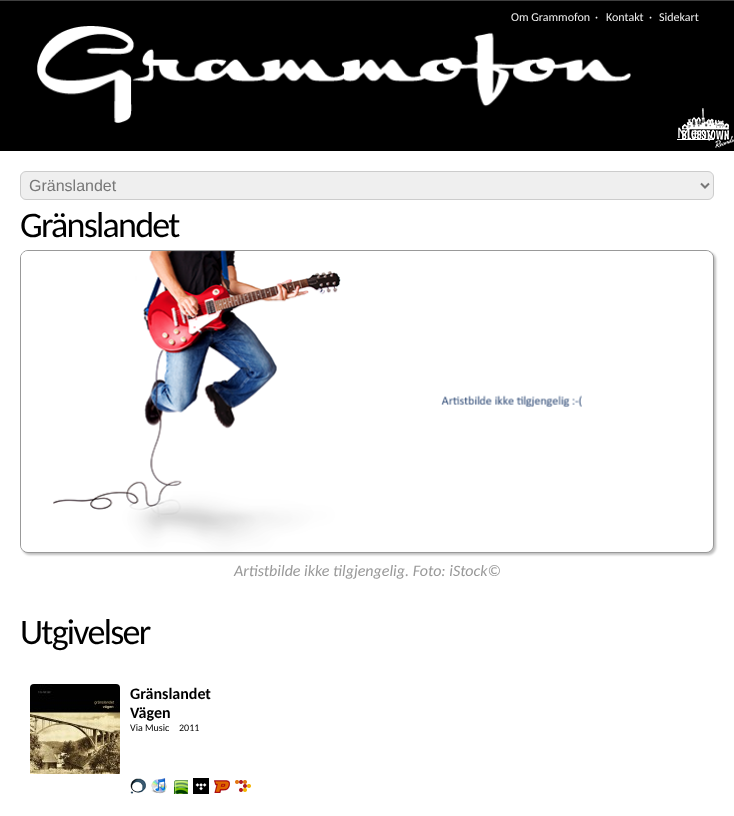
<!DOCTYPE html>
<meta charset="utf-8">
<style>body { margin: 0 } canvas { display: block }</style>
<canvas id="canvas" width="734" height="816"></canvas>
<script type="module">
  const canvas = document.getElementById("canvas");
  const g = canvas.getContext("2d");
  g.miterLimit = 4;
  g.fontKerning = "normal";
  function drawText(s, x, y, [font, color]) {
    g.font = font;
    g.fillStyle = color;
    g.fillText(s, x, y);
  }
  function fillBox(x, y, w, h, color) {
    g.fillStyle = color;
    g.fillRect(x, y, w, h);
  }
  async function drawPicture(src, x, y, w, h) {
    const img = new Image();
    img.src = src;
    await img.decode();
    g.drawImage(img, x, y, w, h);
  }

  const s1 = ["12px Carlito", "#EEEEEE"];
  const s2 = ["16px Carlito", "#FFFFFF"];
  const s3 = ["16px Liberation Sans", "#777777"];
  const s4 = ["36px Carlito", "#000000"];
  const s5 = ["italic 16px Carlito", "#999999"];
  const s6 = ["bold 16px Carlito", "#000000"];
  const s7 = ["10px Carlito", "#000000"];

  fillBox(0, 0, 734, 816, "#FFFFFF");
  fillBox(0, 1, 734, 150, "#000000");
  fillBox(0, 0, 734, 1, "#3F3F3F");
  drawText("Om Grammofon", 511, 21, s1);
  drawText("·", 595, 21, s1);
  drawText("Kontakt", 606, 21, s1);
  drawText("·", 649, 21, s1);
  drawText("Sidekart", 659, 21, s1);
  await drawPicture("pic1.png", 37, 26, 594, 97);
  await drawPicture("pic2.png", 682, 108, 52, 40);
  fillBox(677, 139, 37, 1, "#FFFFFF");
  drawText("Meny", 677, 138, s2);
  g.fillStyle = "#EFEFEF";
  g.beginPath();
  g.roundRect(20.5, 171.5, 693, 28, 5.5);
  g.fill();
  g.strokeStyle = "#CCCCCC";
  g.stroke();
  g.beginPath();
  g.moveTo(701, 183.5);
  g.lineTo(705, 187.5);
  g.lineTo(709, 183.5);
  g.strokeStyle = "#777777";
  g.lineWidth = 2;
  g.stroke();
  drawText("Gränslandet", 29, 191, s3);
  g.letterSpacing = "-1.75px";
  drawText("Gränslandet", 20, 237, s4);
  g.fillStyle = "rgba(0, 0, 0, 0.25)";
  g.filter = "blur(1px)";
  g.beginPath();
  g.roundRect(22, 252, 694, 303, 8);
  g.fill();
  g.filter = "none";
  g.beginPath();
  g.roundRect(20.5, 250.5, 693, 302, 7.5);
  g.strokeStyle = "#999999";
  g.lineWidth = 1;
  g.stroke();
  await drawPicture("pic3.png", 21, 251, 692, 301);
  g.letterSpacing = "0px";
  drawText("Artistbilde ikke tilgjengelig. Foto: iStock©", 234, 576, s5);
  g.letterSpacing = "-1.75px";
  drawText("Utgivelser", 20, 644, s4);
  await drawPicture("pic4.png", 30, 684, 90, 90);
  g.letterSpacing = "0px";
  drawText("Gränslandet", 130, 699, s6);
  drawText("Vägen", 130, 718, s6);
  drawText("Via Music", 130, 731, s7);
  drawText("2011", 179, 731, s7);
  await drawPicture("pic5.png", 130, 778, 16, 16);
  await drawPicture("pic6.png", 151, 778, 16, 16);
  await drawPicture("pic7.png", 173, 780, 15, 14);
  await drawPicture("pic8.png", 193, 778, 16, 16);
  await drawPicture("pic9.png", 214, 780, 16, 13);
  await drawPicture("pic10.png", 235, 780, 16, 12);
</script>
